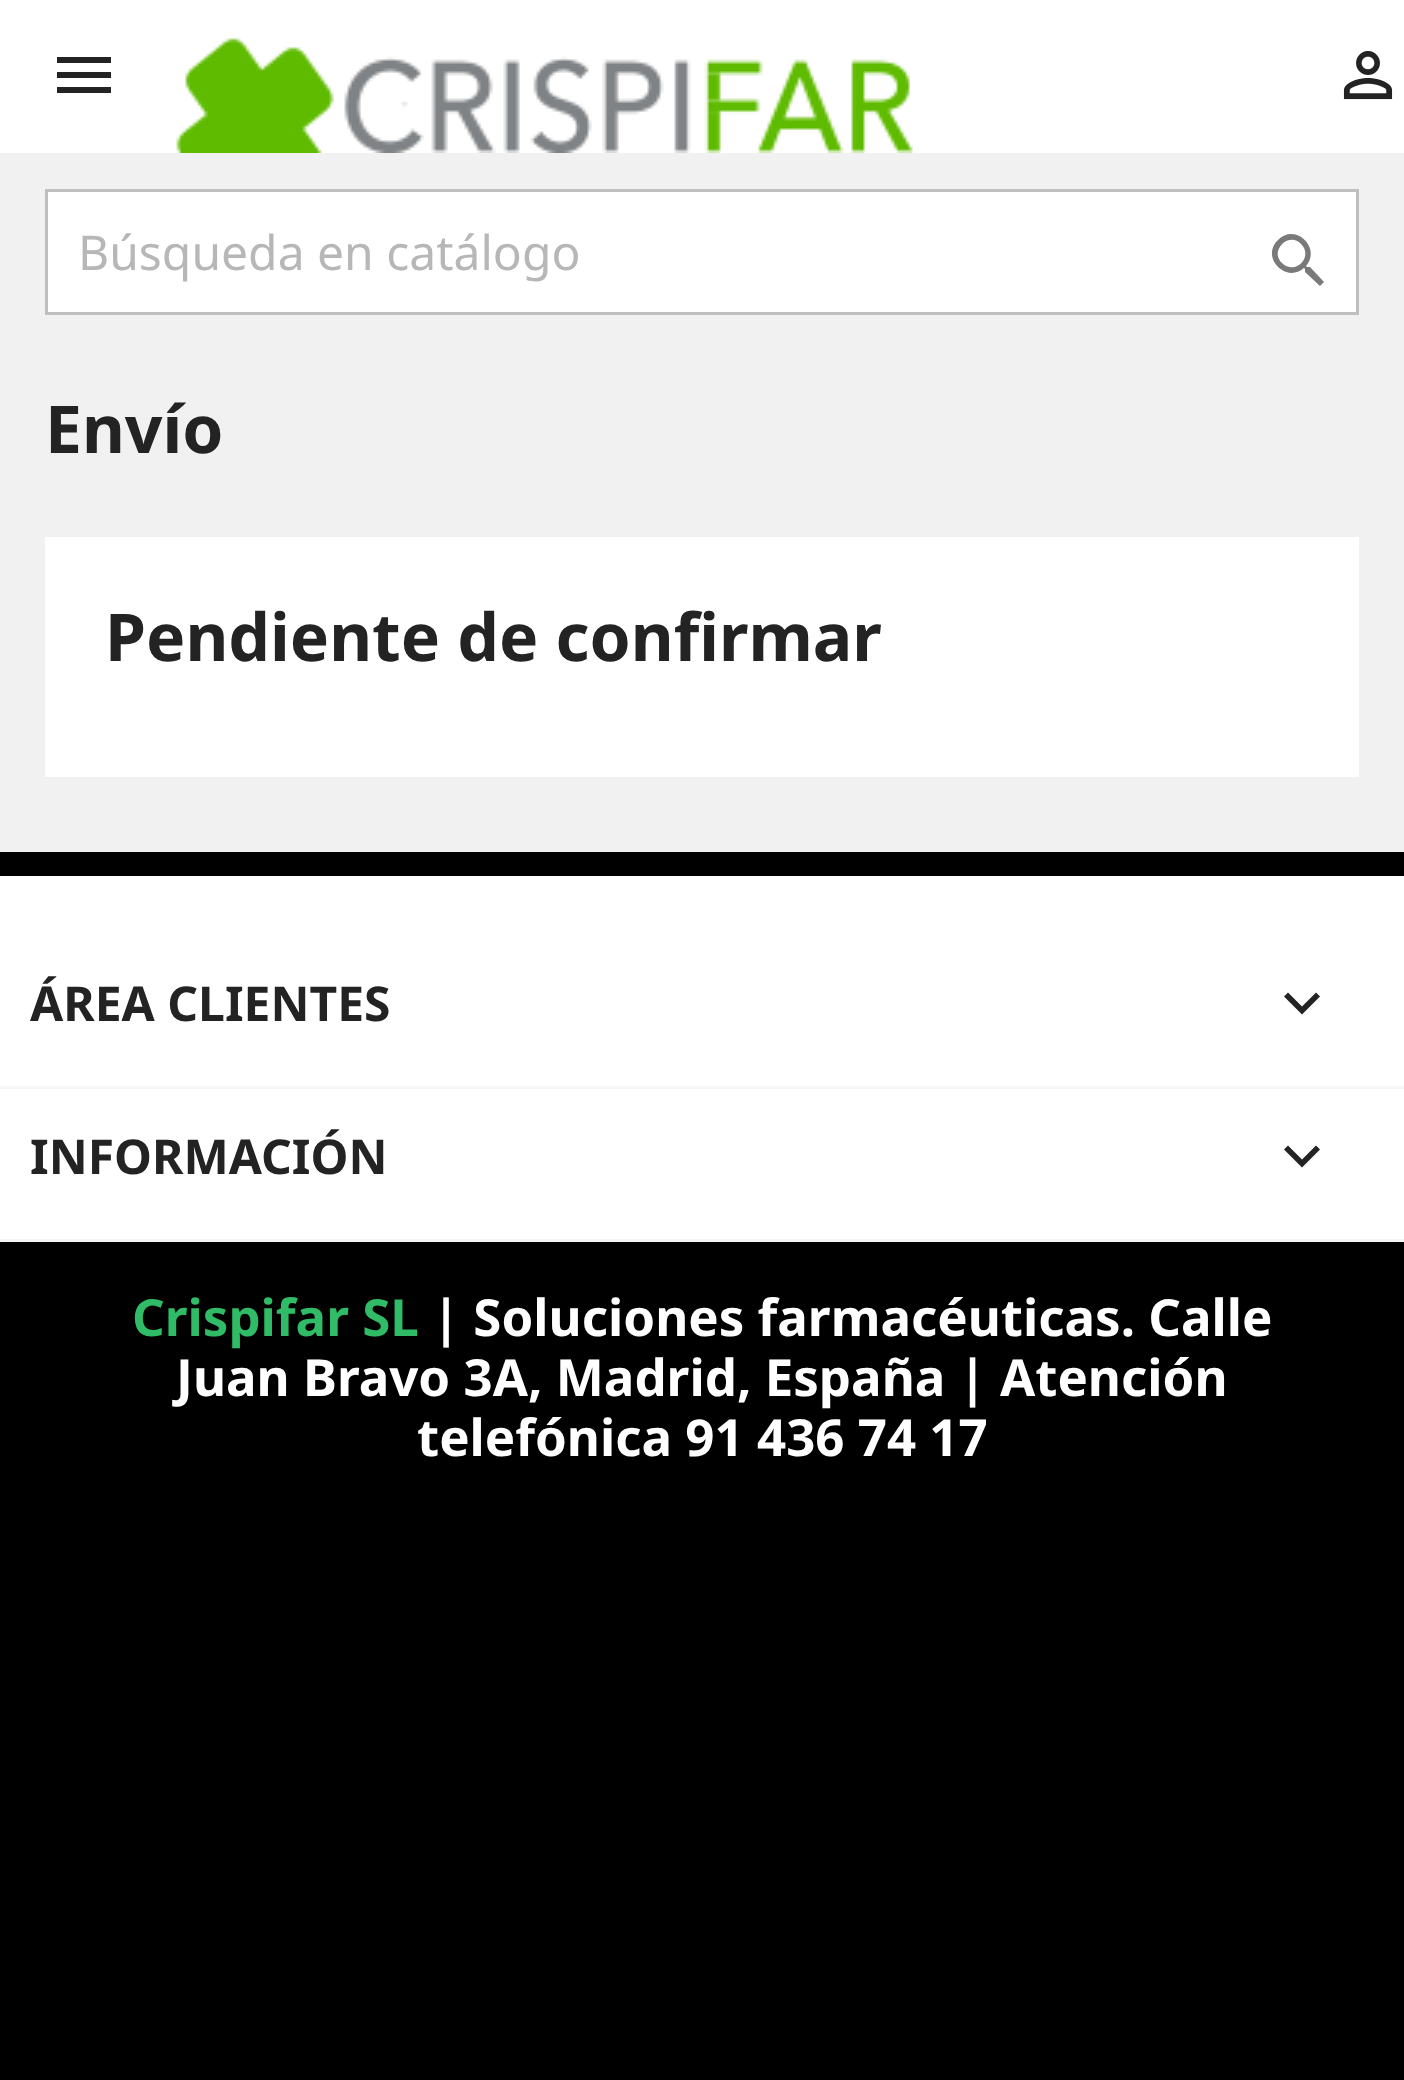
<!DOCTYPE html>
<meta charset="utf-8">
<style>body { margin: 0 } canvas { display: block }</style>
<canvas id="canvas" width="1404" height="2080"></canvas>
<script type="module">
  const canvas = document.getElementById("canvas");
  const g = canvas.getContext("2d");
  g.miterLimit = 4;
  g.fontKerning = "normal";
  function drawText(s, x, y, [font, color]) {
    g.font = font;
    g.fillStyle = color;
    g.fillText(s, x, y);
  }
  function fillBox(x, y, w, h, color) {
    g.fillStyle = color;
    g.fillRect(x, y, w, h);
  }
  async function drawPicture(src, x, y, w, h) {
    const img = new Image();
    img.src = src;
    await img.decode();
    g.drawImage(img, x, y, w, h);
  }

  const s1 = ["48px Noto Sans", "#B7B7B7"];
  const s2 = ["bold 66px Noto Sans", "#232323"];
  const s3 = ["bold 48px Noto Sans", "#232323"];
  const s4 = ["bold 51px Noto Sans", "#30BB67"];
  const s5 = ["bold 51px Noto Sans", "#FFFFFF"];

  fillBox(0, 0, 1404, 2080, "#000000");
  fillBox(0, 153, 1404, 699, "#F1F1F1");
  fillBox(0, 0, 1404, 153, "#FFFFFF");
  g.fillStyle = "#232323";
  g.beginPath();
  g.moveTo(57, 57);
  g.lineTo(111, 57);
  g.lineTo(111, 63);
  g.lineTo(57, 63);
  g.closePath();
  g.moveTo(57, 78);
  g.lineTo(57, 72);
  g.lineTo(111, 72);
  g.lineTo(111, 78);
  g.closePath();
  g.moveTo(57, 93);
  g.lineTo(57, 87);
  g.lineTo(111, 87);
  g.lineTo(111, 93);
  g.closePath();
  g.fill();
  await drawPicture("pic1.png", 176, 38, 737, 115);
  await drawPicture("pic2.png", 1343, 51, 50, 49);
  g.fillStyle = "#FFFFFF";
  g.beginPath();
  g.rect(46.5, 190.5, 1311, 123);
  g.fill();
  g.strokeStyle = "#BFBFBF";
  g.lineWidth = 3;
  g.stroke();
  drawText("Búsqueda en catálogo", 78, 270, s1);
  g.fillStyle = "#7A7A7A";
  g.beginPath();
  g.moveTo(1282, 263);
  g.bezierCurveTo(1295, 276, 1314, 257, 1301, 244);
  g.bezierCurveTo(1289, 231, 1269, 251, 1282, 263);
  g.closePath();
  g.moveTo(1310, 267);
  g.lineTo(1324, 282);
  g.lineTo(1320, 286);
  g.lineTo(1305, 272);
  g.lineTo(1305, 269);
  g.lineTo(1304, 268);
  g.bezierCurveTo(1286, 284, 1260, 257, 1278, 240);
  g.bezierCurveTo(1295, 222, 1322, 248, 1306, 266);
  g.lineTo(1307, 267);
  g.closePath();
  g.fill();
  drawText("Envío", 45, 453, s2);
  fillBox(45, 537, 1314, 240, "#FFFFFF");
  drawText("Pendiente de confirmar", 105, 661, s2);
  fillBox(0, 876, 1404, 363, "#FFFFFF");
  fillBox(0, 1086, 1404, 3, "#F6F6F6");
  drawText("ÁREA CLIENTES", 30, 1021, s3);
  g.beginPath();
  g.moveTo(1288, 992.5);
  g.lineTo(1302, 1006.5);
  g.lineTo(1316, 992.5);
  g.lineTo(1320, 996.5);
  g.lineTo(1302, 1014.5);
  g.lineTo(1284, 996.5);
  g.closePath();
  g.fill();
  fillBox(0, 1239, 1404, 3, "#F6F6F6");
  drawText("INFORMACIÓN", 30, 1174, s3);
  g.beginPath();
  g.moveTo(1288, 1145.5);
  g.lineTo(1302, 1159.5);
  g.lineTo(1316, 1145.5);
  g.lineTo(1320, 1149.5);
  g.lineTo(1302, 1167.5);
  g.lineTo(1284, 1149.5);
  g.closePath();
  g.fill();
  drawText("Crispifar SL", 132, 1336, s4);
  drawText("| Soluciones farmacéuticas. Calle", 432, 1336, s5);
  drawText("Juan Bravo 3A, Madrid, España | Atención", 176, 1396, s5);
  drawText("telefónica 91 436 74 17", 417, 1456, s5);
</script>
